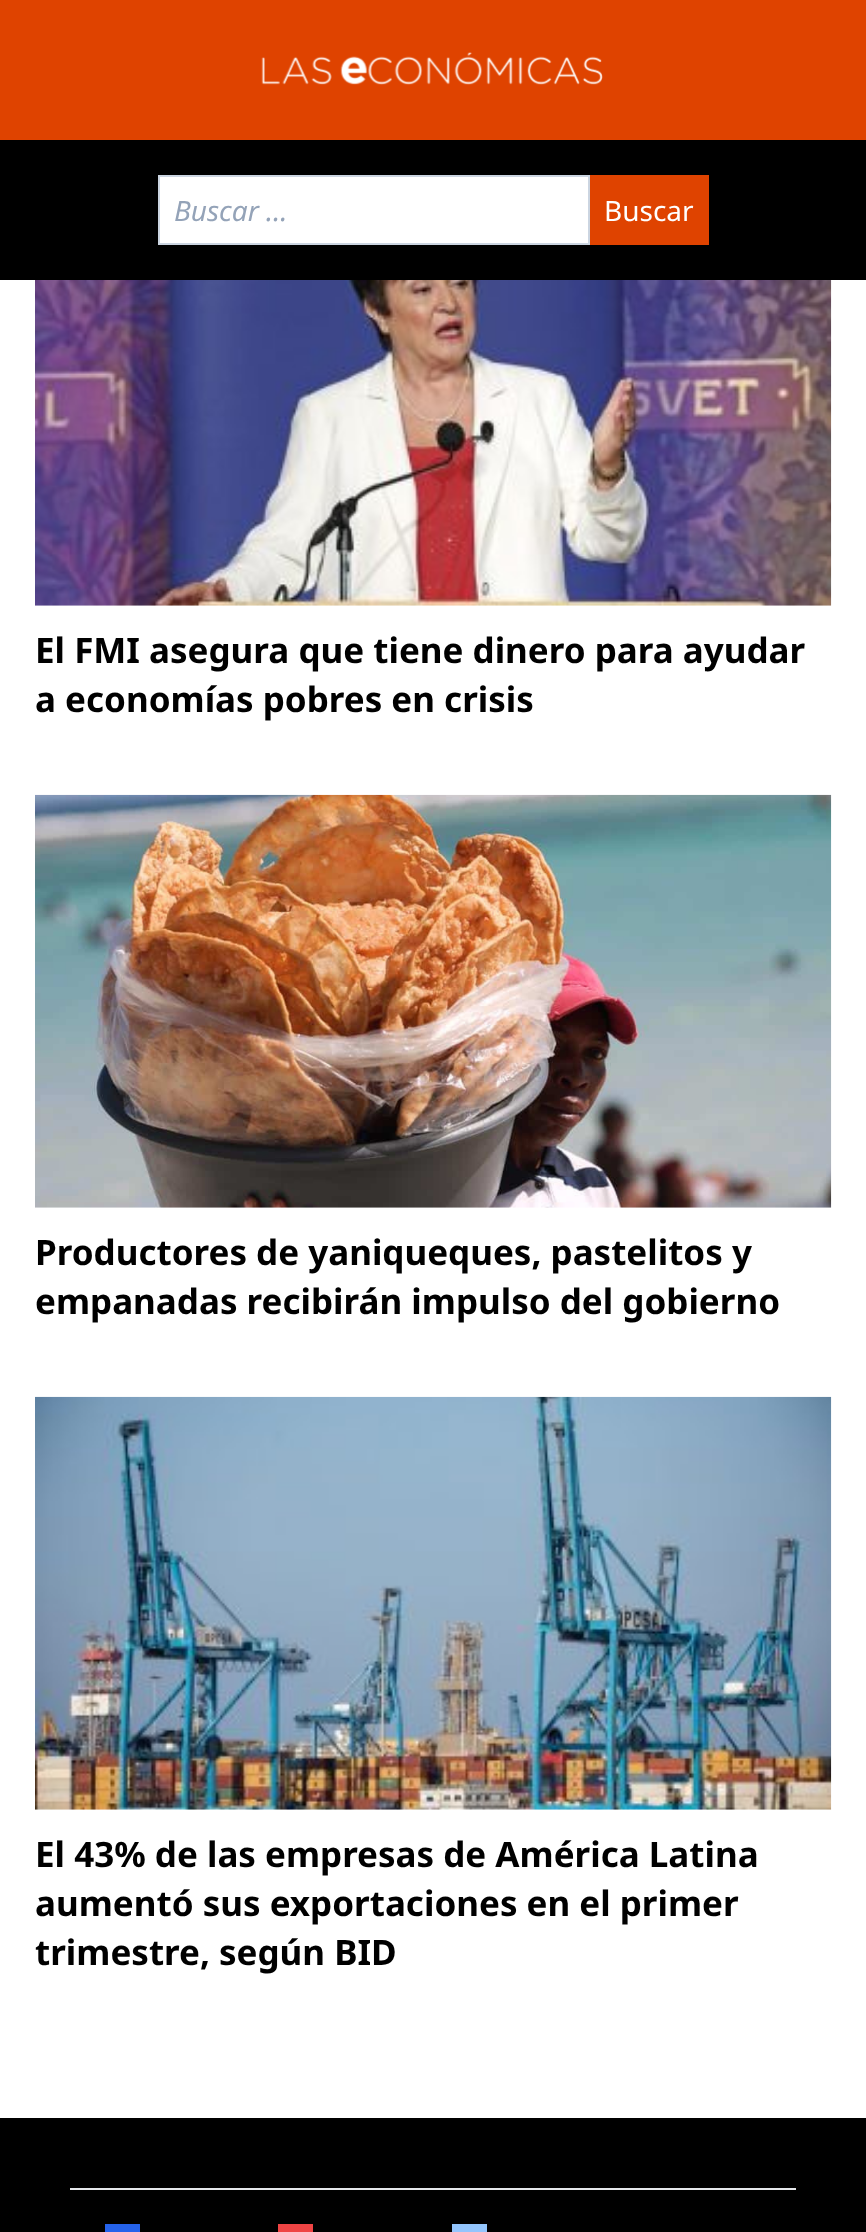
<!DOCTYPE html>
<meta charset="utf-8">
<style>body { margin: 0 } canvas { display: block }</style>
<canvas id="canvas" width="866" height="2232"></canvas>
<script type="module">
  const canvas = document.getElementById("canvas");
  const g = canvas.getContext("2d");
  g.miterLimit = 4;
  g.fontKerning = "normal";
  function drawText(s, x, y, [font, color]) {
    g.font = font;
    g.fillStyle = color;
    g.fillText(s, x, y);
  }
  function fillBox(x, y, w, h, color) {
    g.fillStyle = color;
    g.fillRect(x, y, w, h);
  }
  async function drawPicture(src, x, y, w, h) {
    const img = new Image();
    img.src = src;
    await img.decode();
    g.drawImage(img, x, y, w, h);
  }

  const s1 = ["italic 28px Noto Sans", "#94A3B8"];
  const s2 = ["28px Noto Sans", "#FFFFFF"];
  const s3 = ["bold 35px Noto Sans", "#000000"];

  fillBox(0, 0, 866, 2232, "#FFFFFF");
  fillBox(0, 0, 866, 140, "#DF4300");
  await drawPicture("pic1.png", 261, 52, 342, 33);
  fillBox(0, 140, 866, 140, "#000000");
  g.fillStyle = "#FFFFFF";
  g.beginPath();
  g.rect(159, 176, 430, 68);
  g.fill();
  g.strokeStyle = "#CBD5E1";
  g.lineWidth = 2;
  g.stroke();
  drawText("Buscar …", 174, 221, s1);
  fillBox(590, 175, 119, 70, "#DF4300");
  drawText("Buscar", 604, 221, s2);
  await drawPicture("pic2.png", 35, 280, 797, 326);
  drawText("El FMI asegura que tiene dinero para ayudar", 35, 663, s3);
  drawText("a economías pobres en crisis", 35, 712, s3);
  await drawPicture("pic3.png", 35, 794, 797, 414);
  drawText("Productores de yaniqueques, pastelitos y", 35, 1265, s3);
  drawText("empanadas recibirán impulso del gobierno", 35, 1314, s3);
  await drawPicture("pic4.png", 35, 1396, 797, 414);
  drawText("El 43% de las empresas de América Latina", 35, 1867, s3);
  drawText("aumentó sus exportaciones en el primer", 35, 1916, s3);
  drawText("trimestre, según BID", 35, 1965, s3);
  fillBox(0, 2118, 866, 114, "#000000");
  fillBox(70, 2188, 726, 2, "#E5E7EB");
  fillBox(105, 2224, 35, 8, "#2563EB");
  fillBox(278, 2224, 35, 8, "#EF4444");
  fillBox(452, 2224, 35, 8, "#93C5FD");
</script>
